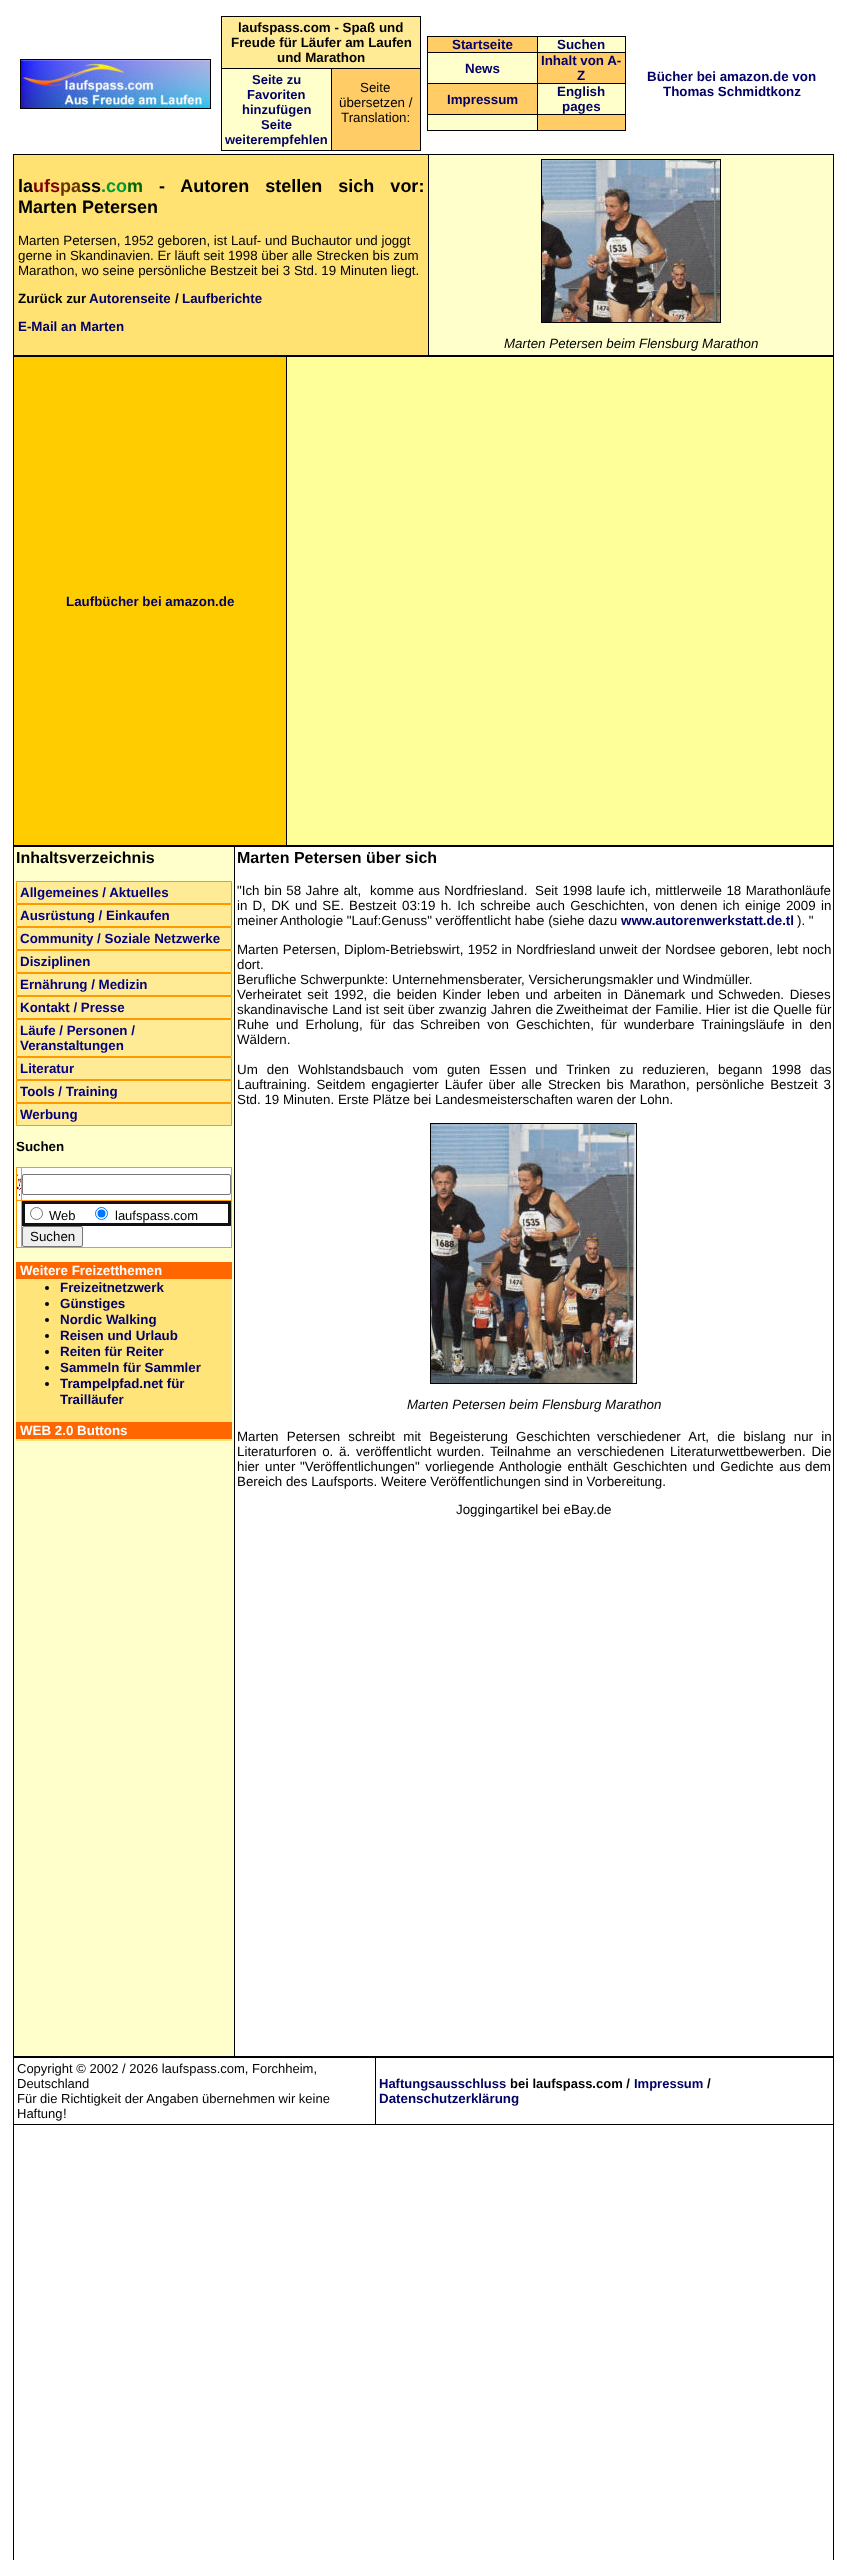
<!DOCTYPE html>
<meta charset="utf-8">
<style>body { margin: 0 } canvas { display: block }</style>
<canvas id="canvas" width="847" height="2560"></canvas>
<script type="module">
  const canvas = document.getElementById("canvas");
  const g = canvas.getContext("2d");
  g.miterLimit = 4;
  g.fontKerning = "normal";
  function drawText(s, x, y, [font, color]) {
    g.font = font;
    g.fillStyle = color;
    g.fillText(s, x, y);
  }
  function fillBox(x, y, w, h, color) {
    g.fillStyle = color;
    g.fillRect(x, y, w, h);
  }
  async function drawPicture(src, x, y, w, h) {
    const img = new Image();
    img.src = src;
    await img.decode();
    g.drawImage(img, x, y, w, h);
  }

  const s1 = ["bold 13.35px Liberation Sans", "#000000"];
  const s2 = ["bold 13px Liberation Sans", "#000066"];
  const s3 = ["13.35px Liberation Sans", "#000000"];
  const s4 = ["bold 13.35px Liberation Sans", "#000066"];
  const s5 = ["bold 18px Liberation Sans", "#000000"];
  const s6 = ["bold 18px Liberation Sans", "#800000"];
  const s7 = ["bold 18px Liberation Sans", "#663300"];
  const s8 = ["bold 18px Liberation Sans", "#009933"];
  const s9 = ["bold 18px Liberation Sans", "#006600"];
  const s10 = ["italic 13.35px Liberation Sans", "#000000"];
  const s11 = ["bold 16px Liberation Sans", "#000000"];
  const s12 = ["bold 13.35px Liberation Sans", "#000080"];
  const s13 = ["13px Liberation Sans", "#000000"];
  const s14 = ["bold 13.35px Liberation Sans", "#FFFFFF"];
  const s15 = ["bold 13px Liberation Sans", "#000000"];

  fillBox(0, 0, 847, 2560, "#FFFFFF");
  g.strokeStyle = "#000000";
  g.strokeRect(20.5, 59.5, 190, 49);
  await drawPicture("pic1.png", 21, 60, 189, 48);
  fillBox(222, 17, 198, 51, "#FFEA95");
  fillBox(221, 16, 200, 1, "#000000");
  fillBox(420, 16, 1, 135, "#000000");
  fillBox(221, 150, 200, 1, "#000000");
  fillBox(221, 16, 1, 135, "#000000");
  drawText("laufspass.com - Spaß und", 238, 32, s1);
  drawText("Freude für Läufer am Laufen", 231, 47, s1);
  drawText("und Marathon", 277, 62, s1);
  fillBox(222, 69, 109, 81, "#FFFFCC");
  fillBox(331, 68, 90, 1, "#000000");
  fillBox(331, 68, 1, 83, "#000000");
  fillBox(221, 68, 111, 1, "#000000");
  drawText("Seite zu", 252, 84, s2);
  drawText("Favoriten", 247, 99, s2);
  drawText("hinzufügen", 242, 114, s2);
  drawText("Seite", 261, 129, s2);
  drawText("weiterempfehlen", 225, 144, s2);
  fillBox(332, 69, 88, 81, "#FFCC66");
  drawText("Seite", 360, 92, s3);
  drawText("übersetzen /", 339, 107, s3);
  drawText("Translation:", 341, 122, s3);
  fillBox(428, 37, 197, 93, "#FFFFCC");
  fillBox(427, 36, 199, 1, "#000000");
  fillBox(625, 36, 1, 95, "#000000");
  fillBox(427, 130, 199, 1, "#000000");
  fillBox(427, 36, 1, 95, "#000000");
  fillBox(428, 37, 109, 15, "#FFCC66");
  drawText("Startseite", 452, 49, s4);
  fillBox(537, 52, 89, 1, "#000000");
  fillBox(537, 83, 89, 1, "#000000");
  fillBox(537, 114, 89, 1, "#000000");
  fillBox(537, 114, 1, 17, "#000000");
  fillBox(427, 114, 111, 1, "#000000");
  fillBox(537, 83, 1, 32, "#000000");
  fillBox(427, 83, 111, 1, "#000000");
  fillBox(537, 52, 1, 32, "#000000");
  fillBox(427, 52, 111, 1, "#000000");
  fillBox(537, 36, 1, 17, "#000000");
  drawText("Suchen", 557, 49, s4);
  drawText("News", 465, 73, s4);
  fillBox(538, 53, 87, 30, "#FFCC66");
  drawText("Inhalt von A-", 541, 65, s4);
  drawText("Z", 577, 80, s4);
  fillBox(428, 84, 109, 30, "#FFCC66");
  drawText("Impressum", 447, 104, s4);
  drawText("English", 557, 96, s4);
  drawText("pages", 562, 111, s4);
  fillBox(538, 115, 87, 15, "#FFCC66");
  drawText("Bücher bei amazon.de von", 647, 81, s4);
  drawText("Thomas Schmidtkonz", 663, 96, s4);
  fillBox(429, 155, 404, 200, "#FFFFCC");
  fillBox(13, 154, 821, 1, "#000000");
  fillBox(833, 154, 1, 202, "#000000");
  fillBox(13, 355, 821, 2, "#000000");
  fillBox(13, 154, 1, 202, "#000000");
  fillBox(14, 155, 414, 200, "#FFE271");
  drawText("la", 18, 192, s5);
  drawText("ufs", 33, 192, s6);
  drawText("pa", 60, 192, s7);
  drawText("ss", 81, 192, s5);
  drawText(".co", 101, 192, s8);
  drawText("m", 127, 192, s9);
  g.wordSpacing = "11px";
  drawText("- Autoren stellen sich vor:", 159, 192, s5);
  g.wordSpacing = "0px";
  drawText("Marten Petersen", 18, 213, s5);
  drawText("Marten Petersen, 1952 geboren, ist Lauf- und Buchautor und joggt", 18, 245, s3);
  drawText("gerne in Skandinavien. Er läuft seit 1998 über alle Strecken bis zum", 18, 260, s3);
  drawText("Marathon, wo seine persönliche Bestzeit bei 3 Std. 19 Minuten liegt.", 18, 275, s3);
  drawText("Zurück zur", 18, 303, s1);
  drawText("Autorenseite", 89, 303, s4);
  drawText("/", 175, 303, s1);
  drawText("Laufberichte", 182, 303, s4);
  drawText("E-Mail an Marten", 18, 331, s4);
  fillBox(428, 154, 1, 202, "#000000");
  g.strokeRect(541.5, 159.5, 179, 163);
  await drawPicture("pic2.png", 542, 160, 178, 162);
  drawText("Marten Petersen beim Flensburg Marathon", 504, 348, s10);
  fillBox(833, 356, 1, 490, "#000000");
  fillBox(13, 845, 821, 2, "#000000");
  fillBox(13, 356, 1, 490, "#000000");
  fillBox(14, 357, 272, 488, "#FFCC00");
  drawText("Laufbücher bei amazon.de", 66, 606, s4);
  fillBox(287, 357, 546, 488, "#FFFF99");
  fillBox(286, 356, 1, 490, "#000000");
  fillBox(14, 847, 220, 1209, "#FFFFCC");
  fillBox(833, 846, 1, 1211, "#000000");
  fillBox(13, 2056, 821, 2, "#000000");
  fillBox(13, 846, 1, 1714, "#000000");
  drawText("Inhaltsverzeichnis", 16, 863, s11);
  g.fillStyle = "#FFEA95";
  g.beginPath();
  g.rect(16.5, 881.5, 215, 22);
  g.fill();
  g.strokeStyle = "#FF9900";
  g.stroke();
  drawText("Allgemeines / Aktuelles", 20, 897, s12);
  g.fillStyle = "#FFEA95";
  g.beginPath();
  g.rect(16.5, 904.5, 215, 22);
  g.fill();
  g.stroke();
  drawText("Ausrüstung / Einkaufen", 20, 920, s12);
  g.fillStyle = "#FFEA95";
  g.beginPath();
  g.rect(16.5, 927.5, 215, 22);
  g.fill();
  g.stroke();
  drawText("Community / Soziale Netzwerke", 20, 943, s12);
  g.fillStyle = "#FFEA95";
  g.beginPath();
  g.rect(16.5, 950.5, 215, 22);
  g.fill();
  g.stroke();
  drawText("Disziplinen", 20, 966, s12);
  g.fillStyle = "#FFEA95";
  g.beginPath();
  g.rect(16.5, 973.5, 215, 22);
  g.fill();
  g.stroke();
  drawText("Ernährung / Medizin", 20, 989, s12);
  g.fillStyle = "#FFEA95";
  g.beginPath();
  g.rect(16.5, 996.5, 215, 22);
  g.fill();
  g.stroke();
  drawText("Kontakt / Presse", 20, 1012, s12);
  g.fillStyle = "#FFEA95";
  g.beginPath();
  g.rect(16.5, 1019.5, 215, 37);
  g.fill();
  g.stroke();
  drawText("Läufe / Personen /", 20, 1035, s12);
  drawText("Veranstaltungen", 20, 1050, s12);
  g.fillStyle = "#FFEA95";
  g.beginPath();
  g.rect(16.5, 1057.5, 215, 22);
  g.fill();
  g.stroke();
  drawText("Literatur", 20, 1073, s12);
  g.fillStyle = "#FFEA95";
  g.beginPath();
  g.rect(16.5, 1080.5, 215, 22);
  g.fill();
  g.stroke();
  drawText("Tools / Training", 20, 1096, s12);
  g.fillStyle = "#FFEA95";
  g.beginPath();
  g.rect(16.5, 1103.5, 215, 22);
  g.fill();
  g.stroke();
  drawText("Werbung", 20, 1119, s12);
  drawText("Suchen", 16, 1151, s1);
  fillBox(17, 1168, 214, 79, "#FFFFFF");
  fillBox(16, 1167, 216, 1, "#FF9900");
  fillBox(231, 1167, 1, 81, "#FF9900");
  fillBox(16, 1247, 216, 1, "#FF9900");
  fillBox(16, 1167, 1, 81, "#FF9900");
  await drawPicture("pic3.png", 17, 1174, 4, 22);
  fillBox(21, 1200, 211, 1, "#FF9900");
  fillBox(21, 1200, 1, 48, "#FF9900");
  fillBox(16, 1200, 6, 1, "#FF9900");
  fillBox(21, 1167, 1, 34, "#FF9900");
  g.beginPath();
  g.roundRect(22.5, 1174.5, 208, 20, 1.5);
  g.strokeStyle = "#767676";
  g.stroke();
  fillBox(22, 1201, 209, 3, "#111111");
  fillBox(228, 1201, 3, 25, "#111111");
  fillBox(22, 1223, 209, 3, "#111111");
  fillBox(22, 1201, 3, 25, "#111111");
  g.beginPath();
  g.arc(36.5, 1213.5, 6, 0, Math.PI * 2);
  g.stroke();
  drawText("Web", 49, 1220, s13);
  g.beginPath();
  g.arc(101.5, 1213.5, 6, 0, Math.PI * 2);
  g.strokeStyle = "#0075FF";
  g.stroke();
  g.fillStyle = "#0075FF";
  g.beginPath();
  g.arc(101.5, 1213.5, 4, 0, Math.PI * 2);
  g.fill();
  drawText("laufspass.com", 115, 1220, s13);
  g.fillStyle = "#EFEFEF";
  g.beginPath();
  g.roundRect(22.5, 1226.5, 60, 20, 1.5);
  g.fill();
  g.strokeStyle = "#767676";
  g.stroke();
  drawText("Suchen", 30, 1241, s3);
  fillBox(16, 1262, 216, 17, "#FF6600");
  drawText("Weitere Freizetthemen", 20, 1275, s14);
  fillBox(16, 1279, 216, 143, "#FFE479");
  g.fillStyle = "#000000";
  g.beginPath();
  g.arc(47, 1288, 2, 0, Math.PI * 2);
  g.fill();
  drawText("Freizeitnetzwerk", 60, 1292, s4);
  g.fillStyle = "#000000";
  g.beginPath();
  g.arc(47, 1304, 2, 0, Math.PI * 2);
  g.fill();
  drawText("Günstiges", 60, 1308, s4);
  g.fillStyle = "#000000";
  g.beginPath();
  g.arc(47, 1320, 2, 0, Math.PI * 2);
  g.fill();
  drawText("Nordic Walking", 60, 1324, s4);
  g.fillStyle = "#000000";
  g.beginPath();
  g.arc(47, 1336, 2, 0, Math.PI * 2);
  g.fill();
  drawText("Reisen und Urlaub", 60, 1340, s4);
  g.fillStyle = "#000000";
  g.beginPath();
  g.arc(47, 1352, 2, 0, Math.PI * 2);
  g.fill();
  drawText("Reiten für Reiter", 60, 1356, s4);
  g.fillStyle = "#000000";
  g.beginPath();
  g.arc(47, 1368, 2, 0, Math.PI * 2);
  g.fill();
  drawText("Sammeln für Sammler", 60, 1372, s4);
  g.fillStyle = "#000000";
  g.beginPath();
  g.arc(47, 1384, 2, 0, Math.PI * 2);
  g.fill();
  drawText("Trampelpfad.net für", 60, 1388, s4);
  drawText("Trailläufer", 60, 1404, s4);
  fillBox(16, 1422, 216, 17, "#FF6600");
  drawText("WEB 2.0 Buttons", 20, 1435, s14);
  fillBox(16, 1439, 216, 2, "#FFE479");
  fillBox(234, 846, 1, 1211, "#000000");
  drawText("Marten Petersen über sich", 237, 863, s11);
  g.wordSpacing = "0.75px";
  drawText("\"Ich bin 58 Jahre alt,  komme aus Nordfriesland.", 237, 895, s3);
  drawText("Seit 1998 laufe ich, mittlerweile 18 Marathonläufe", 535, 895, s3);
  g.wordSpacing = "1.5px";
  drawText("in D, DK und SE. Bestzeit", 237, 910, s3);
  g.wordSpacing = "1.6px";
  drawText("03:19 h. Ich schreibe auch Geschichten, von denen ich einige 2009 in", 402, 910, s3);
  g.wordSpacing = "0px";
  drawText("meiner", 237, 925, s3);
  drawText("Anthologie \"Lauf:Genuss\" veröffentlicht habe (siehe dazu", 280, 925, s3);
  drawText("www.autorenwerkstatt.de.tl", 621, 925, s4);
  drawText("). \"", 797, 925, s3);
  g.wordSpacing = "0.5px";
  drawText("Marten Petersen, Diplom-Betriebswirt, 1952 in Nordfriesland", 237, 954, s3);
  drawText("unweit der Nordsee geboren, lebt noch", 599, 954, s3);
  g.wordSpacing = "0px";
  drawText("dort.", 237, 969, s3);
  drawText("Berufliche Schwerpunkte: Unternehmensberater, Versicherungsmakler und Windmüller.", 237, 984, s3);
  g.wordSpacing = "2.1px";
  drawText("Verheiratet seit 1992, die beiden Kinder leben und arbeiten in Dänemark und", 237, 999, s3);
  drawText("Schweden. Dieses", 718, 999, s3);
  g.wordSpacing = "0.25px";
  drawText("skandinavische Land ist seit über zwanzig Jahren die", 237, 1014, s3);
  drawText("Zweitheimat der Familie. Hier ist die Quelle für", 556, 1014, s3);
  g.wordSpacing = "3.5px";
  drawText("Ruhe und Erholung, für das", 237, 1029, s3);
  drawText("Schreiben von Geschichten, für wunderbare Trainingsläufe in den", 420, 1029, s3);
  g.wordSpacing = "0px";
  drawText("Wäldern.", 237, 1044, s3);
  g.wordSpacing = "5.25px";
  drawText("Um den Wohlstandsbauch vom guten Essen und Trinken zu reduzieren, begann 1998", 237, 1074, s3);
  g.wordSpacing = "0px";
  drawText("das", 810, 1074, s3);
  g.wordSpacing = "2.25px";
  drawText("Lauftraining. Seitdem engagierter Läufer über alle Strecken bis Marathon,", 237, 1089, s3);
  drawText("persönliche Bestzeit 3", 696, 1089, s3);
  g.wordSpacing = "0px";
  drawText("Std. 19 Minuten. Erste Plätze bei Landesmeisterschaften waren der Lohn.", 237, 1104, s3);
  g.strokeStyle = "#000000";
  g.strokeRect(430.5, 1123.5, 206, 260);
  await drawPicture("pic4.png", 431, 1124, 205, 259);
  drawText("Marten Petersen beim Flensburg Marathon", 407, 1409, s10);
  g.wordSpacing = "4.5px";
  drawText("Marten Petersen schreibt mit Begeisterung Geschichten", 237, 1441, s3);
  drawText("verschiedener Art, die bislang nur in", 597, 1441, s3);
  g.wordSpacing = "2.1px";
  drawText("Literaturforen o. ä. veröffentlicht", 237, 1456, s3);
  drawText("wurden. Teilnahme an verschiedenen Literaturwettbewerben. Die", 437, 1456, s3);
  g.wordSpacing = "2px";
  drawText("hier unter", 237, 1471, s3);
  g.wordSpacing = "1.75px";
  drawText("\"Veröffentlichungen\" vorliegende Anthologie enthält Geschichten und Gedichte aus", 300, 1471, s3);
  g.wordSpacing = "0px";
  drawText("dem", 805, 1471, s3);
  drawText("Bereich des Laufsports. Weitere Veröffentlichungen sind in Vorbereitung.", 237, 1486, s3);
  drawText("Joggingartikel bei eBay.de", 456, 1514, s3);
  fillBox(833, 2057, 1, 503, "#000000");
  drawText("Copyright © 2002 / 2026 laufspass.com, Forchheim,", 17, 2073, s13);
  drawText("Deutschland", 17, 2088, s13);
  drawText("Für die Richtigkeit der Angaben übernehmen wir keine", 17, 2103, s13);
  drawText("Haftung", 17, 2118, s13);
  drawText("!", 63, 2118, s3);
  fillBox(13, 2124, 821, 1, "#000000");
  fillBox(375, 2057, 1, 68, "#000000");
  drawText("Haftungsausschluss", 379, 2088, s2);
  drawText("bei laufspass.com /", 510, 2088, s15);
  drawText("Impressum", 634, 2088, s2);
  drawText("/", 707, 2088, s1);
  drawText("Datenschutzerklärung", 379, 2103, s4);
</script>
